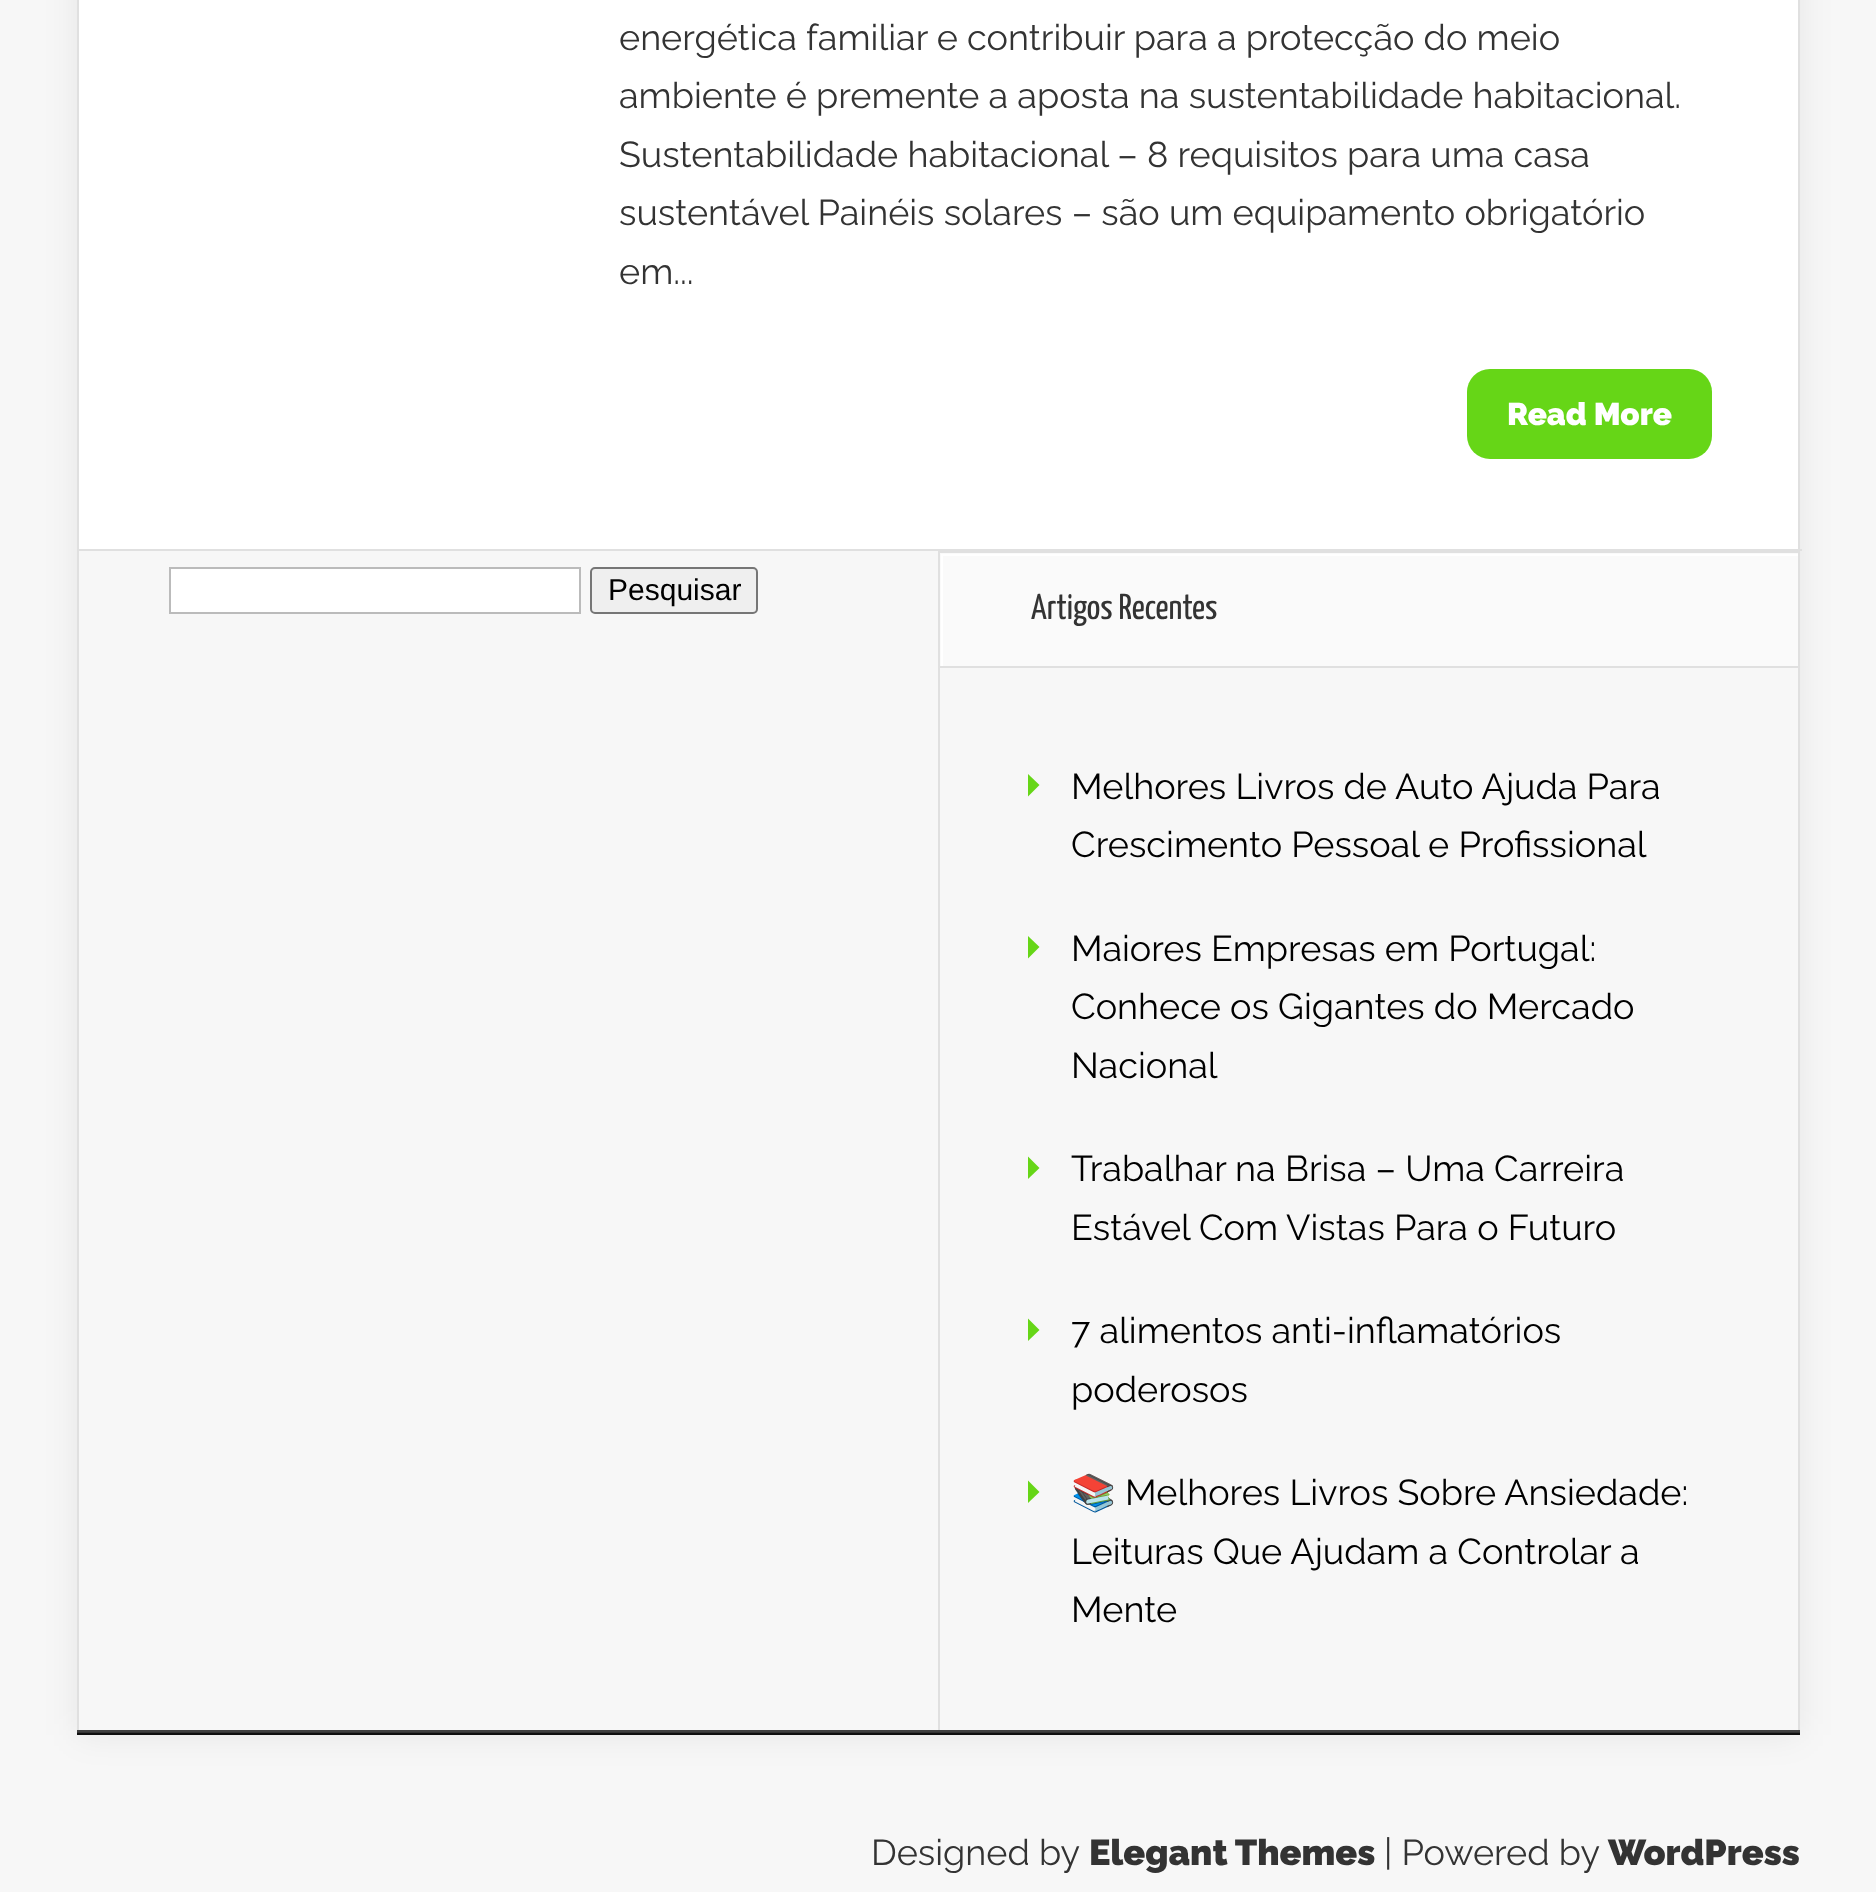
<!DOCTYPE html>
<meta charset="utf-8">
<style>body { margin: 0 } canvas { display: block }</style>
<canvas id="canvas" width="1876" height="1892"></canvas>
<script type="module">
  const canvas = document.getElementById("canvas");
  const g = canvas.getContext("2d");
  g.miterLimit = 4;
  g.fontKerning = "normal";
  function drawText(s, x, y, [font, color]) {
    g.font = font;
    g.fillStyle = color;
    g.fillText(s, x, y);
  }
  function fillBox(x, y, w, h, color) {
    g.fillStyle = color;
    g.fillRect(x, y, w, h);
  }
  function fillRounded(x, y, w, h, r, color) {
    g.fillStyle = color;
    g.beginPath();
    g.roundRect(x, y, w, h, r);
    g.fill();
  }

  const s1 = ["36px Raleway", "#333333"];
  const s2 = ["900 31.5px Raleway", "#FFFFFF"];
  const s3 = ["30px Liberation Sans", "#000000"];
  const s4 = ["36px Yanone Kaffeesatz", "#333333"];
  const s5 = ["36px Raleway", "#000000"];
  const s6 = ["36px Noto Color Emoji", "#000000"];
  const s7 = ["900 36px Raleway", "#333333"];

  fillBox(0, 0, 1876, 1892, "#F7F7F7");
  g.fillStyle = "rgba(0, 0, 0, 0.07)";
  g.filter = "blur(17px)";
  g.beginPath();
  g.rect(77, -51, 1723, 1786);
  g.fill();
  g.filter = "none";
  fillBox(79, 0, 1719, 549, "#FFFFFF");
  fillBox(1798, 0, 2, 1730, "#E0E0E0");
  fillBox(77, 0, 2, 1730, "#E0E0E0");
  fillBox(79, 549, 1723, 2, "#E0E0E0");
  drawText("energética familiar e contribuir para a protecção do meio", 619, 50, s1);
  drawText("ambiente é premente a aposta na sustentabilidade habitacional.", 619, 108, s1);
  drawText("Sustentabilidade habitacional – 8 requisitos para uma casa", 619, 167, s1);
  drawText("sustentável Painéis solares – são um equipamento obrigatório", 619, 225, s1);
  drawText("em...", 619, 284, s1);
  fillRounded(1467, 369, 245, 90, 23, "#66D617");
  drawText("Read More", 1507, 425, s2);
  fillBox(79, 551, 1719, 1179, "#F7F7F7");
  g.fillStyle = "#FFFFFF";
  g.beginPath();
  g.rect(170, 568, 410, 45);
  g.fill();
  g.strokeStyle = "#BBBBBB";
  g.lineWidth = 2;
  g.stroke();
  g.fillStyle = "#EFEFEF";
  g.beginPath();
  g.roundRect(591, 568, 166, 45, 4);
  g.fill();
  g.strokeStyle = "#767676";
  g.stroke();
  drawText("Pesquisar", 608, 600, s3);
  fillBox(938, 668, 2, 1062, "#E0E0E0");
  fillBox(940, 553, 858, 113, "#FAFAFA");
  g.save();
  g.beginPath();
  g.rect(941, 554, 857, 112);
  g.clip();
  g.fillStyle = "#FFFFFF";
  g.beginPath();
  g.moveTo(718, 331);
  g.lineTo(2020, 331);
  g.lineTo(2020, 889);
  g.lineTo(718, 889);
  g.closePath();
  g.moveTo(943, 556);
  g.lineTo(1800, 556);
  g.lineTo(1800, 668);
  g.lineTo(943, 668);
  g.closePath();
  g.fill("evenodd");
  g.restore();
  fillBox(938, 551, 860, 2, "#E0E0E0");
  fillBox(938, 666, 860, 2, "#E0E0E0");
  fillBox(938, 551, 2, 117, "#E0E0E0");
  drawText("Artigos Recentes", 1031, 619, s4);
  g.fillStyle = "#66D617";
  g.beginPath();
  g.moveTo(1028, 796.5);
  g.lineTo(1028, 774);
  g.lineTo(1039.5, 785);
  g.closePath();
  g.fill();
  drawText("Melhores Livros de Auto Ajuda Para", 1071, 799, s5);
  drawText("Crescimento Pessoal e Profissional", 1071, 857, s5);
  g.fillStyle = "#66D617";
  g.beginPath();
  g.moveTo(1028, 958.5);
  g.lineTo(1028, 936);
  g.lineTo(1039.5, 947);
  g.closePath();
  g.fill();
  drawText("Maiores Empresas em Portugal:", 1071, 961, s5);
  drawText("Conhece os Gigantes do Mercado", 1071, 1019, s5);
  drawText("Nacional", 1071, 1078, s5);
  g.fillStyle = "#66D617";
  g.beginPath();
  g.moveTo(1028, 1179);
  g.lineTo(1028, 1156.5);
  g.lineTo(1039.5, 1168);
  g.closePath();
  g.fill();
  drawText("Trabalhar na Brisa – Uma Carreira", 1071, 1181, s5);
  drawText("Estável Com Vistas Para o Futuro", 1071, 1240, s5);
  g.fillStyle = "#66D617";
  g.beginPath();
  g.moveTo(1028, 1341);
  g.lineTo(1028, 1318.5);
  g.lineTo(1039.5, 1330);
  g.closePath();
  g.fill();
  drawText("7 alimentos anti-inflamatórios", 1071, 1343, s5);
  drawText("poderosos", 1071, 1402, s5);
  g.fillStyle = "#66D617";
  g.beginPath();
  g.moveTo(1028, 1503);
  g.lineTo(1028, 1480.5);
  g.lineTo(1039.5, 1492);
  g.closePath();
  g.fill();
  drawText("📚", 1071, 1505, s6);
  drawText("Melhores Livros Sobre Ansiedade:", 1125, 1505, s5);
  drawText("Leituras Que Ajudam a Controlar a", 1071, 1564, s5);
  drawText("Mente", 1071, 1622, s5);
  fillBox(77, 1732, 1723, 1, "#333333");
  fillBox(77, 1730, 1723, 2, "#404040");
  fillBox(77, 1733, 1723, 2, "#0F0F0F");
  drawText("Designed by", 871, 1865, s1);
  drawText("Elegant Themes", 1089, 1865, s7);
  drawText("| Powered by", 1384, 1865, s1);
  drawText("WordPress", 1608, 1865, s7);
</script>
